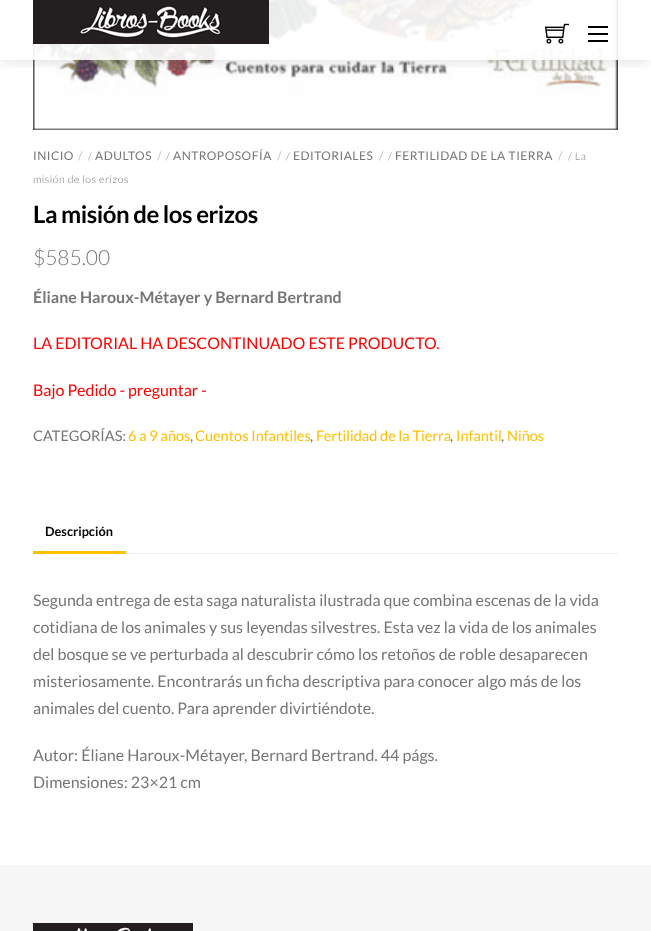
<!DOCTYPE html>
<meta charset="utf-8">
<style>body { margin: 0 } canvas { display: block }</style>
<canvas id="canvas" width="651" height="931"></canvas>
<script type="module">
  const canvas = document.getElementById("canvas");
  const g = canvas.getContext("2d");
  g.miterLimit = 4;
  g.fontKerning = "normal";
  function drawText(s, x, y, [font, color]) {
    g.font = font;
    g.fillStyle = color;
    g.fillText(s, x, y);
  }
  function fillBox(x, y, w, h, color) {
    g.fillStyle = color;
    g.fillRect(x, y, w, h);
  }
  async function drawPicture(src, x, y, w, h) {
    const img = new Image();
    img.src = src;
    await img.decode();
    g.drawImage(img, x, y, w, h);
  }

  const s1 = ["12px Lato", "#767676"];
  const s2 = ["12px Lato", "#C8C8C8"];
  const s3 = ["300 10.5px Lato", "#767676"];
  const s4 = ["bold 24px Lato", "#000000"];
  const s5 = ["300 21px Lato", "#767676"];
  const s6 = ["bold 16px Lato", "#767676"];
  const s7 = ["16px Lato", "#FF0000"];
  const s8 = ["14.5px Lato", "#767676"];
  const s9 = ["14.5px Lato", "#FFC001"];
  const s10 = ["bold 12.75px Lato", "#060604"];
  const s11 = ["16px Lato", "#767676"];

  fillBox(0, 0, 651, 931, "#FFFFFF");
  await drawPicture("pic3.png", 33, 0, 585, 130);
  g.save();
  g.beginPath();
  g.rect(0, 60, 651, 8);
  g.clip();
  g.fillStyle = "rgba(0, 0, 0, 0.12)";
  g.filter = "blur(7.5px)";
  g.beginPath();
  g.rect(0, 1, 651, 60);
  g.fill();
  g.filter = "none";
  g.restore();
  fillBox(33, 0, 585, 60, "rgba(255, 255, 255, 0.9)");
  await drawPicture("pic1.png", 33, 0, 236, 44);
  await drawPicture("pic2.png", 545, 23, 24, 21);
  fillBox(588, 26, 20, 2, "#000000");
  fillBox(588, 40, 20, 2, "#000000");
  fillBox(588, 33, 20, 2, "#000000");
  g.letterSpacing = "0.5px";
  drawText("INICIO", 33, 160, s1);
  drawText("/", 78, 160, s2);
  drawText("/", 88, 160, s3);
  drawText("ADULTOS", 95, 160, s1);
  drawText("/", 157, 160, s2);
  drawText("/", 166, 160, s3);
  drawText("ANTROPOSOFÍA", 173, 160, s1);
  drawText("/", 277, 160, s2);
  drawText("/", 286, 160, s3);
  drawText("EDITORIALES", 293, 160, s1);
  drawText("/", 379, 160, s2);
  drawText("/", 388, 160, s3);
  drawText("FERTILIDAD DE LA TIERRA", 395, 160, s1);
  drawText("/", 558, 160, s2);
  drawText("/ La", 568, 160, s3);
  drawText("misión de los erizos", 33, 183, s3);
  g.letterSpacing = "-0.5px";
  drawText("La misión de los erizos", 33, 223, s4);
  g.letterSpacing = "0px";
  drawText("$585.00", 33, 265, s5);
  drawText("Éliane Haroux-Métayer y Bernard Bertrand", 33, 303, s6);
  drawText("LA EDITORIAL HA DESCONTINUADO ESTE PRODUCTO.", 33, 349, s7);
  drawText("Bajo Pedido - preguntar -", 33, 396, s7);
  drawText("CATEGORÍAS:", 33, 441, s8);
  drawText("6 a 9 años", 128, 441, s9);
  drawText(",", 190, 441, s8);
  drawText("Cuentos Infantiles", 195, 441, s9);
  drawText(",", 310, 441, s8);
  drawText("Fertilidad de la Tierra", 316, 441, s9);
  drawText(",", 450, 441, s8);
  drawText("Infantil", 456, 441, s9);
  drawText(",", 501, 441, s8);
  drawText("Niños", 507, 441, s9);
  fillBox(33, 551, 93, 3, "#FFC001");
  drawText("Descripción", 45, 536, s10);
  fillBox(126, 553, 492, 1, "#F0F0F0");
  drawText("Segunda entrega de esta saga naturalista ilustrada que combina escenas de la vida", 33, 606, s11);
  drawText("cotidiana de los animales y sus leyendas silvestres. Esta vez la vida de los animales", 33, 633, s11);
  drawText("del bosque se ve perturbada al descubrir cómo los retoños de roble desaparecen", 33, 660, s11);
  drawText("misteriosamente. Encontrarás un ficha descriptiva para conocer algo más de los", 33, 687, s11);
  drawText("animales del cuento. Para aprender divirtiéndote.", 33, 714, s11);
  drawText("Autor: Éliane Haroux-Métayer, Bernard Bertrand. 44 págs.", 33, 761, s11);
  drawText("Dimensiones: 23×21 cm", 33, 788, s11);
  fillBox(0, 865, 651, 66, "#F7F7F7");
  await drawPicture("pic4.png", 33, 923, 160, 8);
</script>
